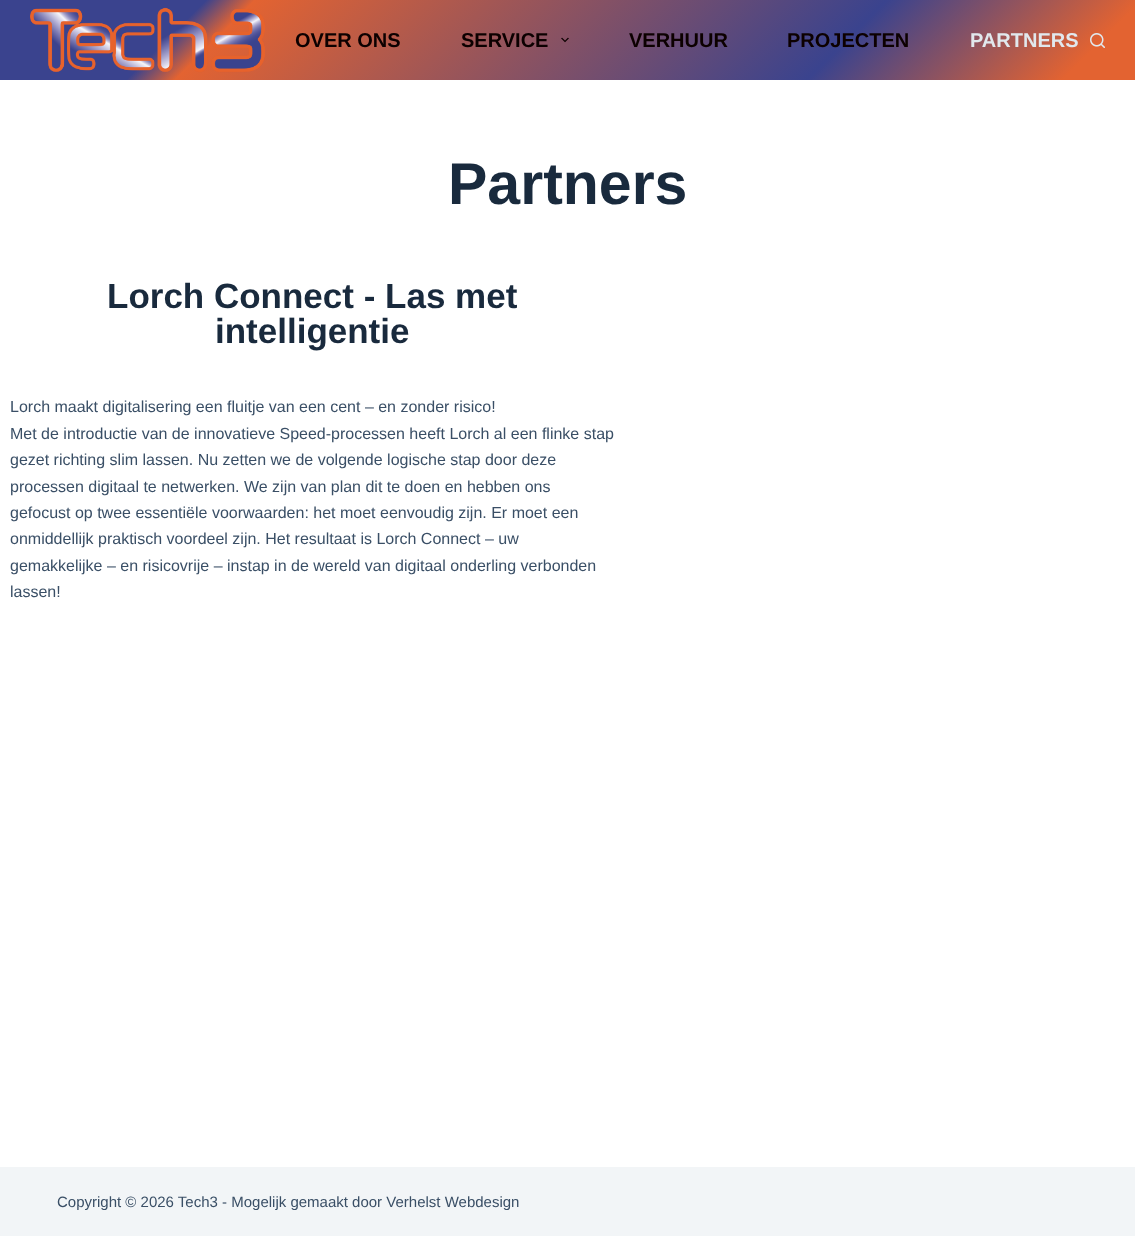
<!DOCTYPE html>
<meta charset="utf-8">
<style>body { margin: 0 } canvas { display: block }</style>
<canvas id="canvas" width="1135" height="1236"></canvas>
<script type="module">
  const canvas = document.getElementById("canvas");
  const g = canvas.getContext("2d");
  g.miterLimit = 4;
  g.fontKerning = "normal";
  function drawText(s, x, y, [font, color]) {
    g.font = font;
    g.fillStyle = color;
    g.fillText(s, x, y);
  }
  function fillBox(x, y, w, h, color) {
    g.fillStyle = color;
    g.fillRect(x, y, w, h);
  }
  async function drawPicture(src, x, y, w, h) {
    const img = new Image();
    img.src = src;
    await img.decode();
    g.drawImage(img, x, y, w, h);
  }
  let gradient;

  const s1 = ["bold 20px Liberation Sans", "#0C0000"];
  const s2 = ["bold 20px Liberation Sans", "#E1E8ED"];
  const s3 = ["bold 59px Liberation Sans", "#192A3D"];
  const s4 = ["bold 35px Liberation Sans", "#192A3D"];
  const s5 = ["16px Liberation Sans", "#3A4F66"];
  const s6 = ["15px Liberation Sans", "#3A4F66"];

  fillBox(0, 0, 1135, 1236, "#FFFFFF");
  gradient = g.createLinearGradient(264, -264, 871, 344);
  gradient.addColorStop(0, "#3A438E");
  gradient.addColorStop(0.17, "#3A438E");
  gradient.addColorStop(0.21, "#E36331");
  gradient.addColorStop(0.73, "#3A438E");
  gradient.addColorStop(0.94, "#E36331");
  g.fillStyle = gradient;
  g.fillRect(0, 0, 1135, 80);
  await drawPicture("pic1.png", 30, 7, 235, 66);
  drawText("OVER ONS", 295, 47, s1);
  drawText("SERVICE", 461, 47, s1);
  await drawPicture("pic2.png", 561, 37, 8, 6);
  drawText("VERHUUR", 629, 47, s1);
  drawText("PROJECTEN", 787, 47, s1);
  drawText("PARTNERS", 970, 47, s2);
  await drawPicture("pic3.png", 1090, 33, 15, 15);
  drawText("Partners", 448, 204, s3);
  drawText("Lorch Connect - Las met", 107, 308, s4);
  drawText("intelligentie", 215, 343, s4);
  drawText("Lorch maakt digitalisering een fluitje van een cent – en zonder risico!", 10, 412, s5);
  drawText("Met de introductie van de innovatieve Speed-processen heeft Lorch al een flinke stap", 10, 439, s5);
  drawText("gezet richting slim lassen. Nu zetten we de volgende logische stap door deze", 10, 465, s5);
  drawText("processen digitaal te netwerken. We zijn van plan dit te doen en hebben ons", 10, 492, s5);
  drawText("gefocust op twee essentiële voorwaarden: het moet eenvoudig zijn. Er moet een", 10, 518, s5);
  drawText("onmiddellijk praktisch voordeel zijn. Het resultaat is Lorch Connect – uw", 10, 544, s5);
  drawText("gemakkelijke – en risicovrije – instap in de wereld van digitaal onderling verbonden", 10, 571, s5);
  drawText("lassen!", 10, 597, s5);
  fillBox(0, 1167, 1135, 69, "#F2F5F7");
  drawText("Copyright © 2026 Tech3 - Mogelijk gemaakt door Verhelst Webdesign", 57, 1207, s6);
</script>
